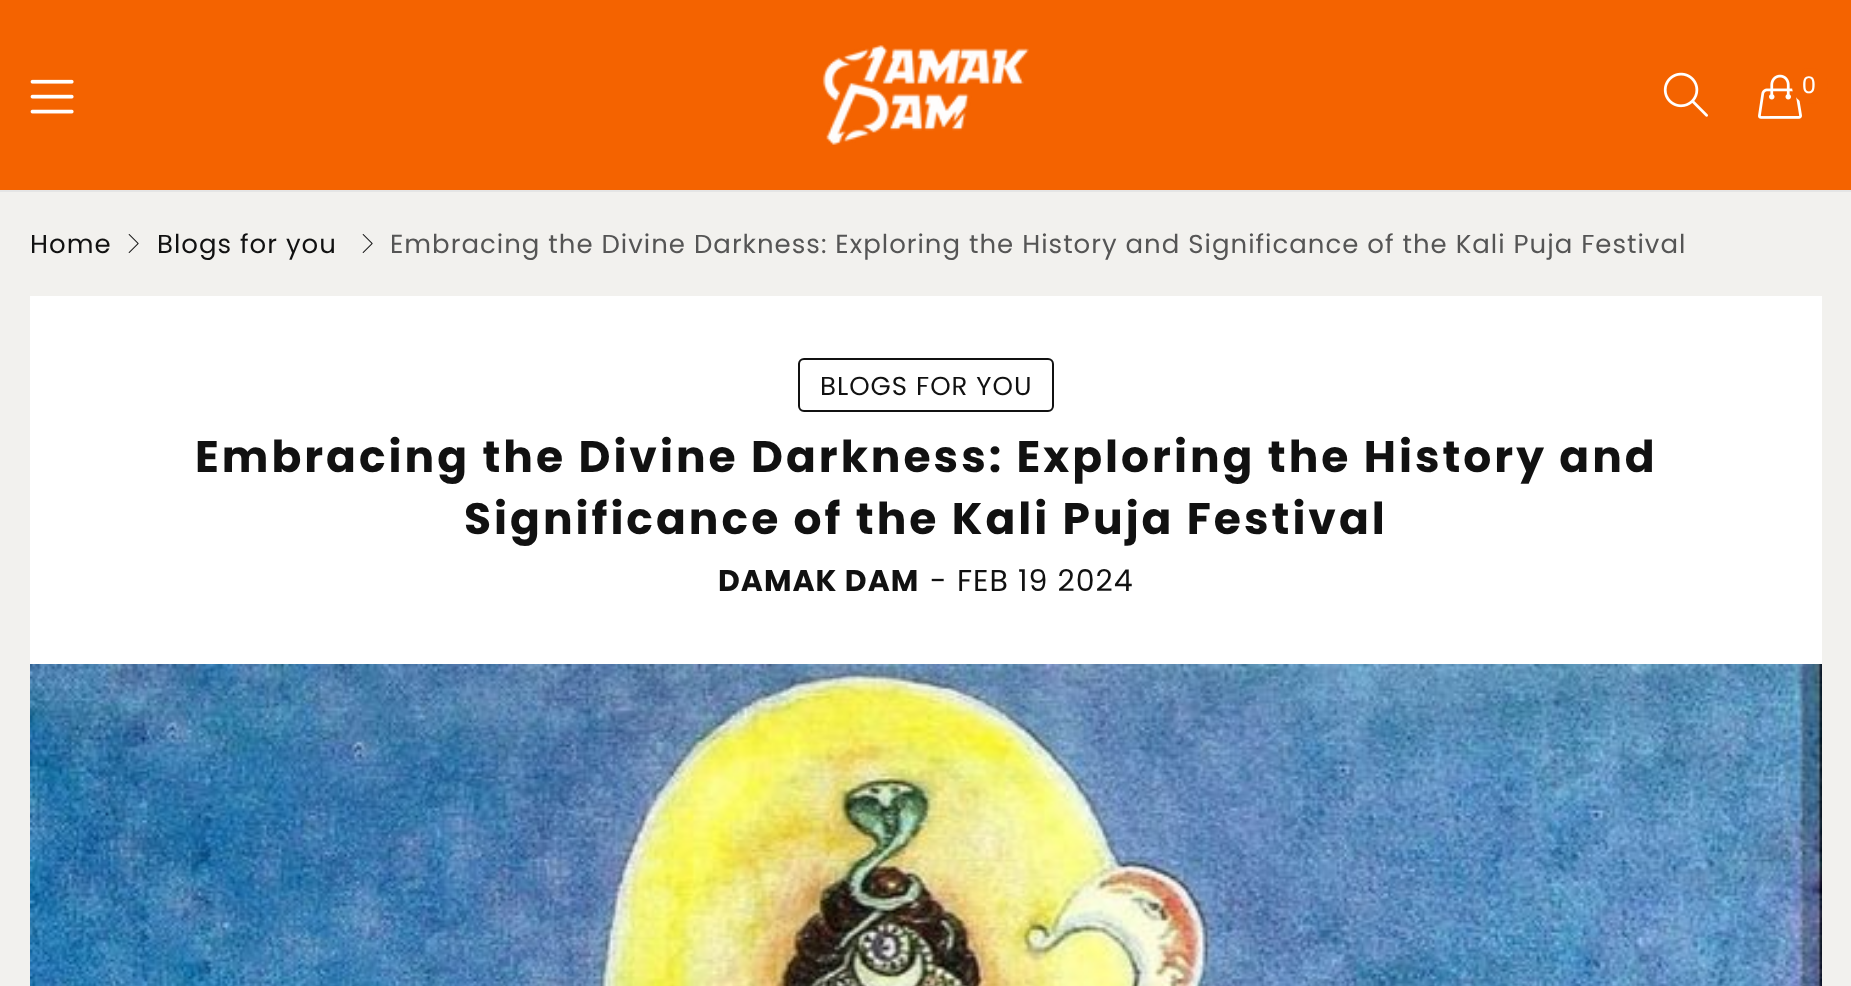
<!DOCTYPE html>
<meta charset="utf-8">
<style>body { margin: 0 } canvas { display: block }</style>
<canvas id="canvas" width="1851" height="986"></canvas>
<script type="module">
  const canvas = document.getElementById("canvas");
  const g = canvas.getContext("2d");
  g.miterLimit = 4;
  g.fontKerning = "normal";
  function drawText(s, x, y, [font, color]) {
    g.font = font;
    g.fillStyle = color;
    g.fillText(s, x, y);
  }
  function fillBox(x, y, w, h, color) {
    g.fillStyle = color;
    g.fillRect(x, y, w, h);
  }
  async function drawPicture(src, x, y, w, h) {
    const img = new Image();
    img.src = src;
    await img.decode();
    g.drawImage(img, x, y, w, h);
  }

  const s1 = ["24px Archivo", "#FFFFFF"];
  const s2 = ["26px Poppins", "#111111"];
  const s3 = ["26px Poppins", "#555555"];
  const s4 = ["bold 44px Poppins", "#111111"];
  const s5 = ["bold 30px Poppins", "#111111"];
  const s6 = ["30px Poppins", "#111111"];

  fillBox(0, 0, 1851, 986, "#F2F1EE");
  fillBox(0, 190, 1851, 2, "#E5E5E5");
  fillBox(0, 0, 1851, 190, "#F46300");
  await drawPicture("pic1.png", 30, 79, 44, 35);
  await drawPicture("pic2.png", 822, 45, 207, 100);
  await drawPicture("pic3.png", 1663, 72, 45, 45);
  await drawPicture("pic4.png", 1758, 74, 44, 45);
  g.beginPath();
  g.arc(1810, 86, 18, 0, Math.PI * 2);
  g.fill();
  g.letterSpacing = "1px";
  drawText("0", 1802, 93, s1);
  drawText("Home", 30, 253, s2);
  await drawPicture("pic5.png", 128, 234, 11, 19);
  drawText("Blogs for you", 157, 253, s2);
  await drawPicture("pic5.png", 362, 234, 11, 19);
  drawText("Embracing the Divine Darkness: Exploring the History and Significance of the Kali Puja Festival", 390, 253, s3);
  fillBox(30, 296, 1792, 368, "#FFFFFF");
  g.beginPath();
  g.roundRect(799, 359, 254, 52, 5);
  g.strokeStyle = "#111111";
  g.lineWidth = 2;
  g.stroke();
  drawText("BLOGS FOR YOU", 820, 395, s2);
  g.letterSpacing = "3px";
  drawText("Embracing the Divine Darkness: Exploring the History and", 195, 472, s4);
  drawText("Significance of the Kali Puja Festival", 464, 534, s4);
  g.letterSpacing = "1px";
  drawText("DAMAK DAM", 718, 591, s5);
  drawText("-", 930, 591, s6);
  drawText("FEB 19 2024", 957, 591, s6);
  await drawPicture("pic6.png", 30, 664, 1792, 322);
</script>
